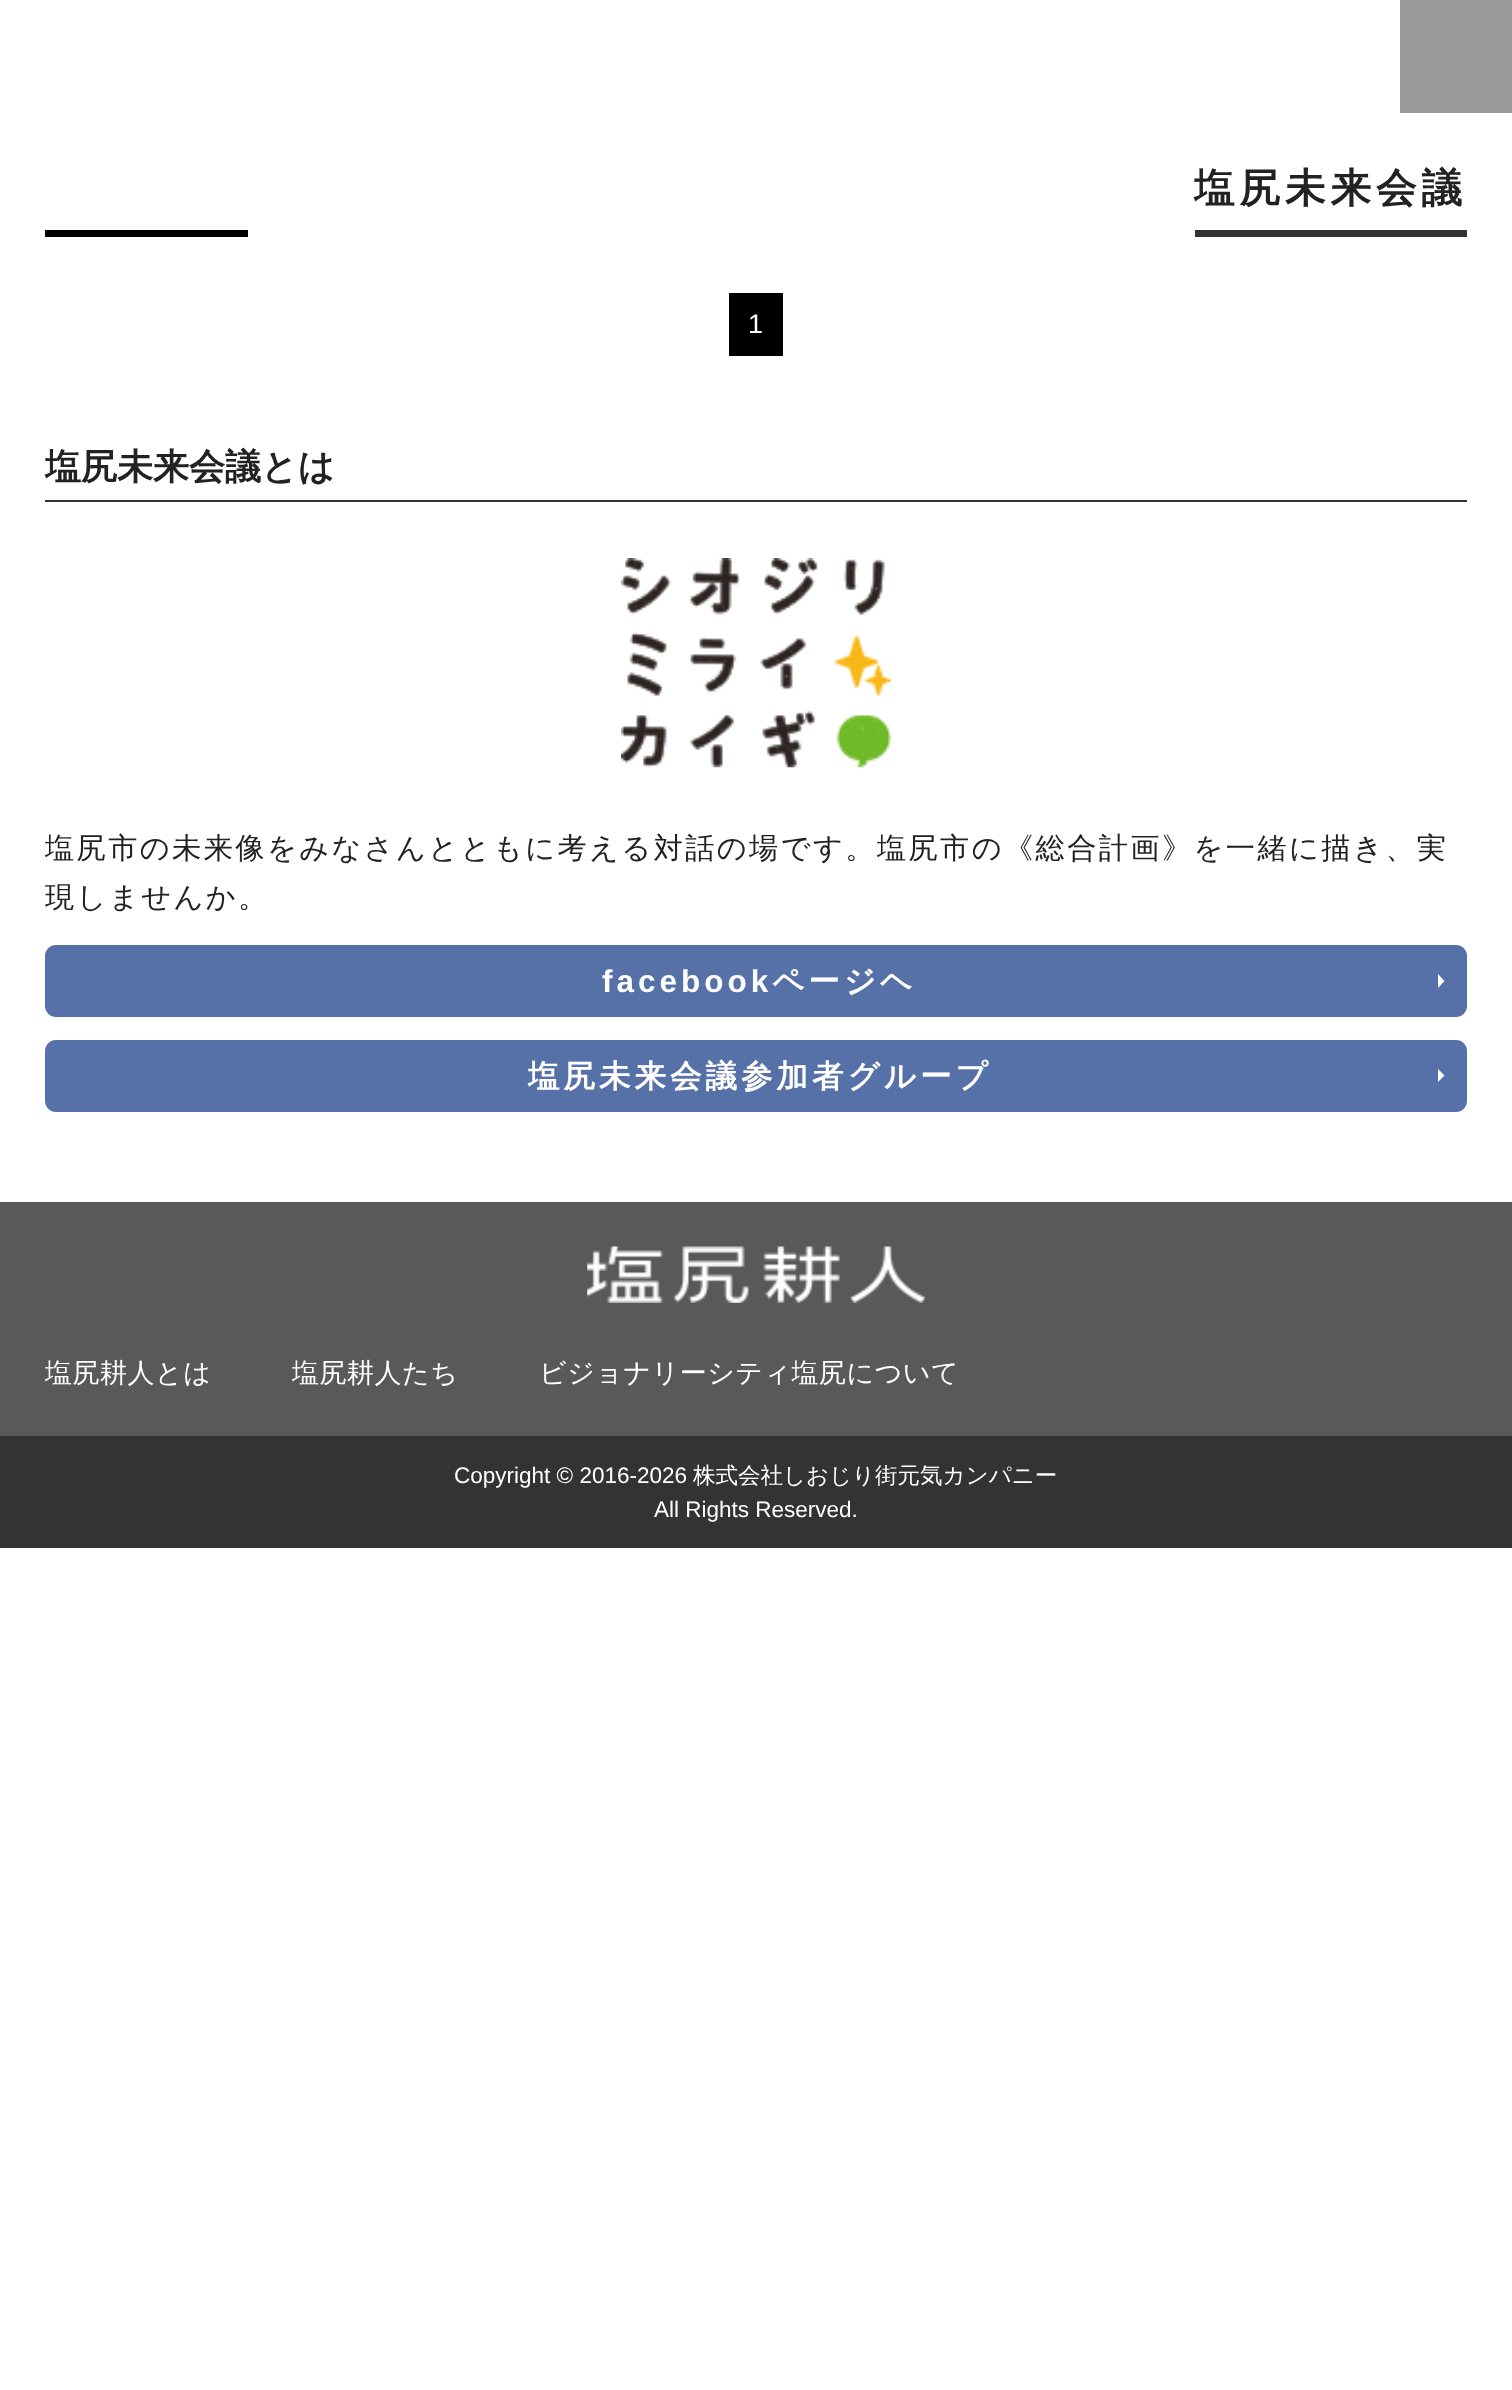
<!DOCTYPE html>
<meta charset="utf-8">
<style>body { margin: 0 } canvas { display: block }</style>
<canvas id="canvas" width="1512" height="2390"></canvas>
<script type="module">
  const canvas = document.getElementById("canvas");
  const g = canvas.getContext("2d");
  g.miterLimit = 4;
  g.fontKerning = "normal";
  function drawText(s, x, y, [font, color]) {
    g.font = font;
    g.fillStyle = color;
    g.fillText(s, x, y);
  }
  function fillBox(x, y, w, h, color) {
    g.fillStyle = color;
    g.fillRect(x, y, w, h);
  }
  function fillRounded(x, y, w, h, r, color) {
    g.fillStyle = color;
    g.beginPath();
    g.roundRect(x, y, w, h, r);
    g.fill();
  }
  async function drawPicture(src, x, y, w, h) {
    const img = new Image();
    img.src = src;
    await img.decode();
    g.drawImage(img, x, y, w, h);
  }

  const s1 = ["bold 40.5px WenQuanYi Zen Hei", "#222222"];
  const s2 = ["27px Liberation Sans", "#FFFFFF"];
  const s3 = ["bold 36px WenQuanYi Zen Hei", "#222222"];
  const s4 = ["500 29.25px WenQuanYi Zen Hei", "#222222"];
  const s5 = ["bold 31.5px Liberation Sans", "#FFFFFF"];
  const s6 = ["bold 31.5px WenQuanYi Zen Hei", "#FFFFFF"];
  const s7 = ["500 27px WenQuanYi Zen Hei", "#FFFFFF"];
  const s8 = ["22.5px Liberation Sans", "#FFFFFF"];
  const s9 = ["500 22.5px WenQuanYi Zen Hei", "#FFFFFF"];

  fillBox(0, 0, 1512, 2390, "#FFFFFF");
  fillBox(1400, 0, 112, 113, "#999999");
  fillBox(45, 230, 203, 7, "#000000");
  fillBox(1195, 230, 272, 7, "#333333");
  g.letterSpacing = "5px";
  drawText("塩尻未来会議", 1194, 202, s1);
  fillBox(729, 293, 54, 63, "#000000");
  g.letterSpacing = "0px";
  drawText("1", 748, 333, s2);
  fillBox(45, 500, 1422, 2, "#333333");
  drawText("塩尻未来会議とは", 45, 479, s3);
  await drawPicture("pic1.png", 621, 558, 270, 210);
  g.letterSpacing = "2.35px";
  drawText("塩尻市の未来像をみなさんとともに考える対話の場です。塩尻市の《総合計画》を一緒に描き、実", 45, 858, s4);
  drawText("現しませんか。", 45, 907, s4);
  fillRounded(45, 945, 1422, 72, 11, "#5670A8");
  g.letterSpacing = "4px";
  drawText("facebook", 602, 992, s5);
  drawText("ページヘ", 772, 992, s6);
  g.beginPath();
  g.moveTo(1438, 988);
  g.lineTo(1438, 974);
  g.lineTo(1444.5, 981);
  g.closePath();
  g.fill();
  fillRounded(45, 1040, 1422, 72, 11, "#5670A8");
  drawText("塩尻未来会議参加者グループ", 528, 1087, s6);
  g.beginPath();
  g.moveTo(1438, 1082);
  g.lineTo(1438, 1069);
  g.lineTo(1444.5, 1075.5);
  g.closePath();
  g.fill();
  fillBox(0, 1202, 1512, 234, "#595959");
  await drawPicture("pic2.png", 587, 1246, 338, 57);
  g.letterSpacing = "0.5px";
  drawText("塩尻耕人とは", 45, 1382, s7);
  drawText("塩尻耕人たち", 292, 1382, s7);
  drawText("ビジョナリーシティ塩尻について", 539, 1382, s7);
  fillBox(0, 1436, 1512, 112, "#333333");
  g.letterSpacing = "0px";
  drawText("Copyright © 2016-2026", 454, 1483, s8);
  drawText("株式会社しおじり街元気カンパニー", 693, 1483, s9);
  drawText("All Rights Reserved.", 654, 1517, s8);
</script>
